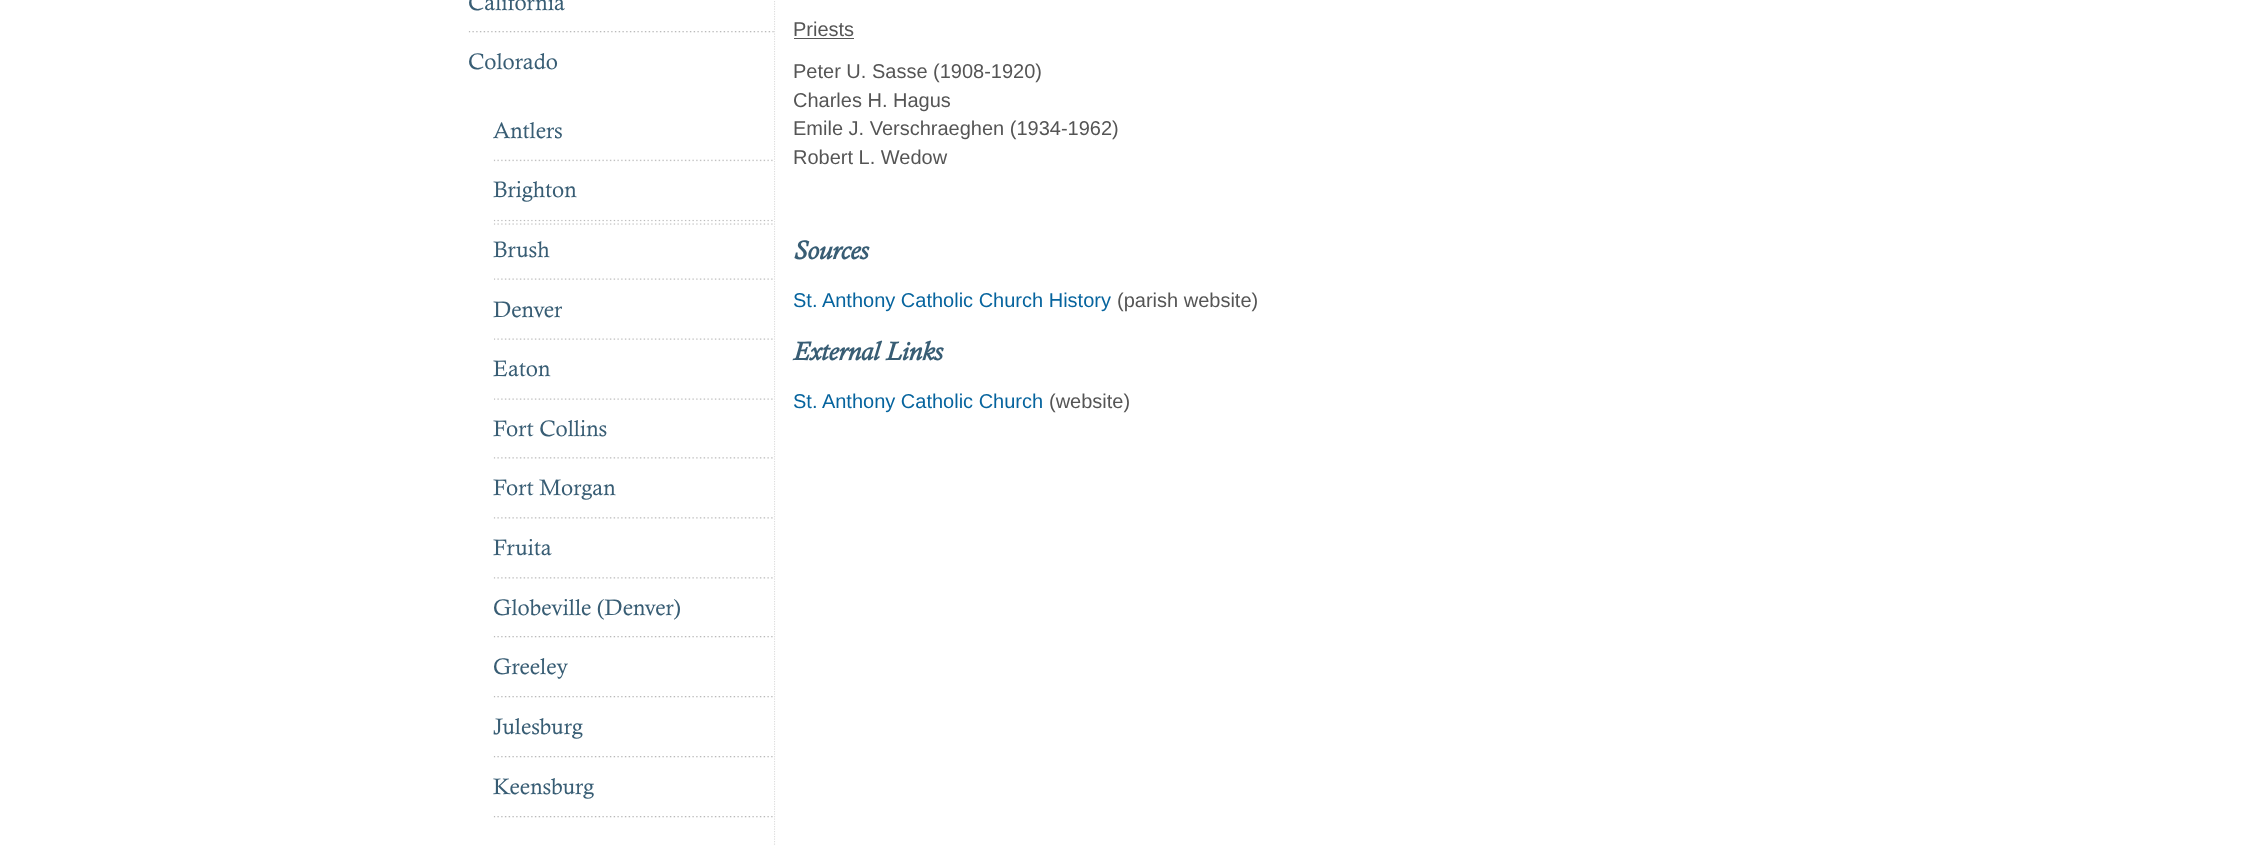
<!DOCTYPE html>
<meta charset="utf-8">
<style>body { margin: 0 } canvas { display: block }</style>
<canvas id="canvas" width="2261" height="845"></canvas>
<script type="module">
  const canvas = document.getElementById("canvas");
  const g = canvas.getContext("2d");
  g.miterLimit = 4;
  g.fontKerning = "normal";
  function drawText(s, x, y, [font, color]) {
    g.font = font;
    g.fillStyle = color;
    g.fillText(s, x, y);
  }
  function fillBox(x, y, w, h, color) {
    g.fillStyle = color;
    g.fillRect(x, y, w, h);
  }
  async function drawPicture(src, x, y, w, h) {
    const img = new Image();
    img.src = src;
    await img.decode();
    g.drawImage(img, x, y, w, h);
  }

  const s1 = ["22.5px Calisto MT", "#385D74"];
  const s2 = ["20px Liberation Sans", "#555555"];
  const s3 = ["italic bold 26.25px Calisto MT", "#385D74"];
  const s4 = ["20px Liberation Sans", "#06649E"];

  fillBox(0, 0, 2261, 845, "#FFFFFF");
  g.beginPath();
  g.moveTo(774.5, -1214);
  g.lineTo(774.5, 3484);
  g.strokeStyle = "#DDDDDD";
  g.lineWidth = 1.2;
  g.setLineDash([1.25, 1.25]);
  g.stroke();
  fillBox(773, 1, 1, 841, "#FFFFFF");
  drawText("California", 468, 10, s1);
  await drawPicture("pic1.png", 468, 31, 306, 2);
  drawText("Colorado", 468, 69, s1);
  drawText("Antlers", 493, 138, s1);
  await drawPicture("pic2.png", 493, 159, 280, 3);
  drawText("Brighton", 493, 197, s1);
  await drawPicture("pic3.png", 493, 219, 280, 6);
  drawText("Brush", 493, 257, s1);
  await drawPicture("pic4.png", 494, 278, 279, 2);
  drawText("Denver", 493, 317, s1);
  await drawPicture("pic4.png", 494, 338, 279, 2);
  drawText("Eaton", 493, 376, s1);
  await drawPicture("pic4.png", 494, 398, 279, 2);
  drawText("Fort Collins", 493, 436, s1);
  await drawPicture("pic5.png", 493, 457, 280, 2);
  drawText("Fort Morgan", 493, 495, s1);
  await drawPicture("pic5.png", 493, 517, 280, 2);
  drawText("Fruita", 493, 555, s1);
  await drawPicture("pic5.png", 493, 577, 280, 2);
  drawText("Globeville (Denver)", 493, 615, s1);
  await drawPicture("pic6.png", 493, 636, 280, 2);
  drawText("Greeley", 493, 674, s1);
  await drawPicture("pic6.png", 493, 696, 280, 2);
  drawText("Julesburg", 493, 734, s1);
  await drawPicture("pic6.png", 493, 756, 280, 2);
  drawText("Keensburg", 493, 794, s1);
  await drawPicture("pic6.png", 493, 816, 280, 2);
  drawText("Priests", 793, 36, s2);
  fillBox(794, 38, 60, 1, "#555555");
  drawText("Peter U. Sasse (1908-1920)", 793, 78, s2);
  drawText("Charles H. Hagus", 793, 107, s2);
  drawText("Emile J. Verschraeghen (1934-1962)", 793, 135, s2);
  drawText("Robert L. Wedow", 793, 164, s2);
  drawText("Sources", 793, 259, s3);
  drawText("St. Anthony Catholic Church History", 793, 307, s4);
  drawText("(parish website)", 1117, 307, s2);
  drawText("External Links", 793, 360, s3);
  drawText("St. Anthony Catholic Church", 793, 408, s4);
  drawText("(website)", 1049, 408, s2);
</script>
